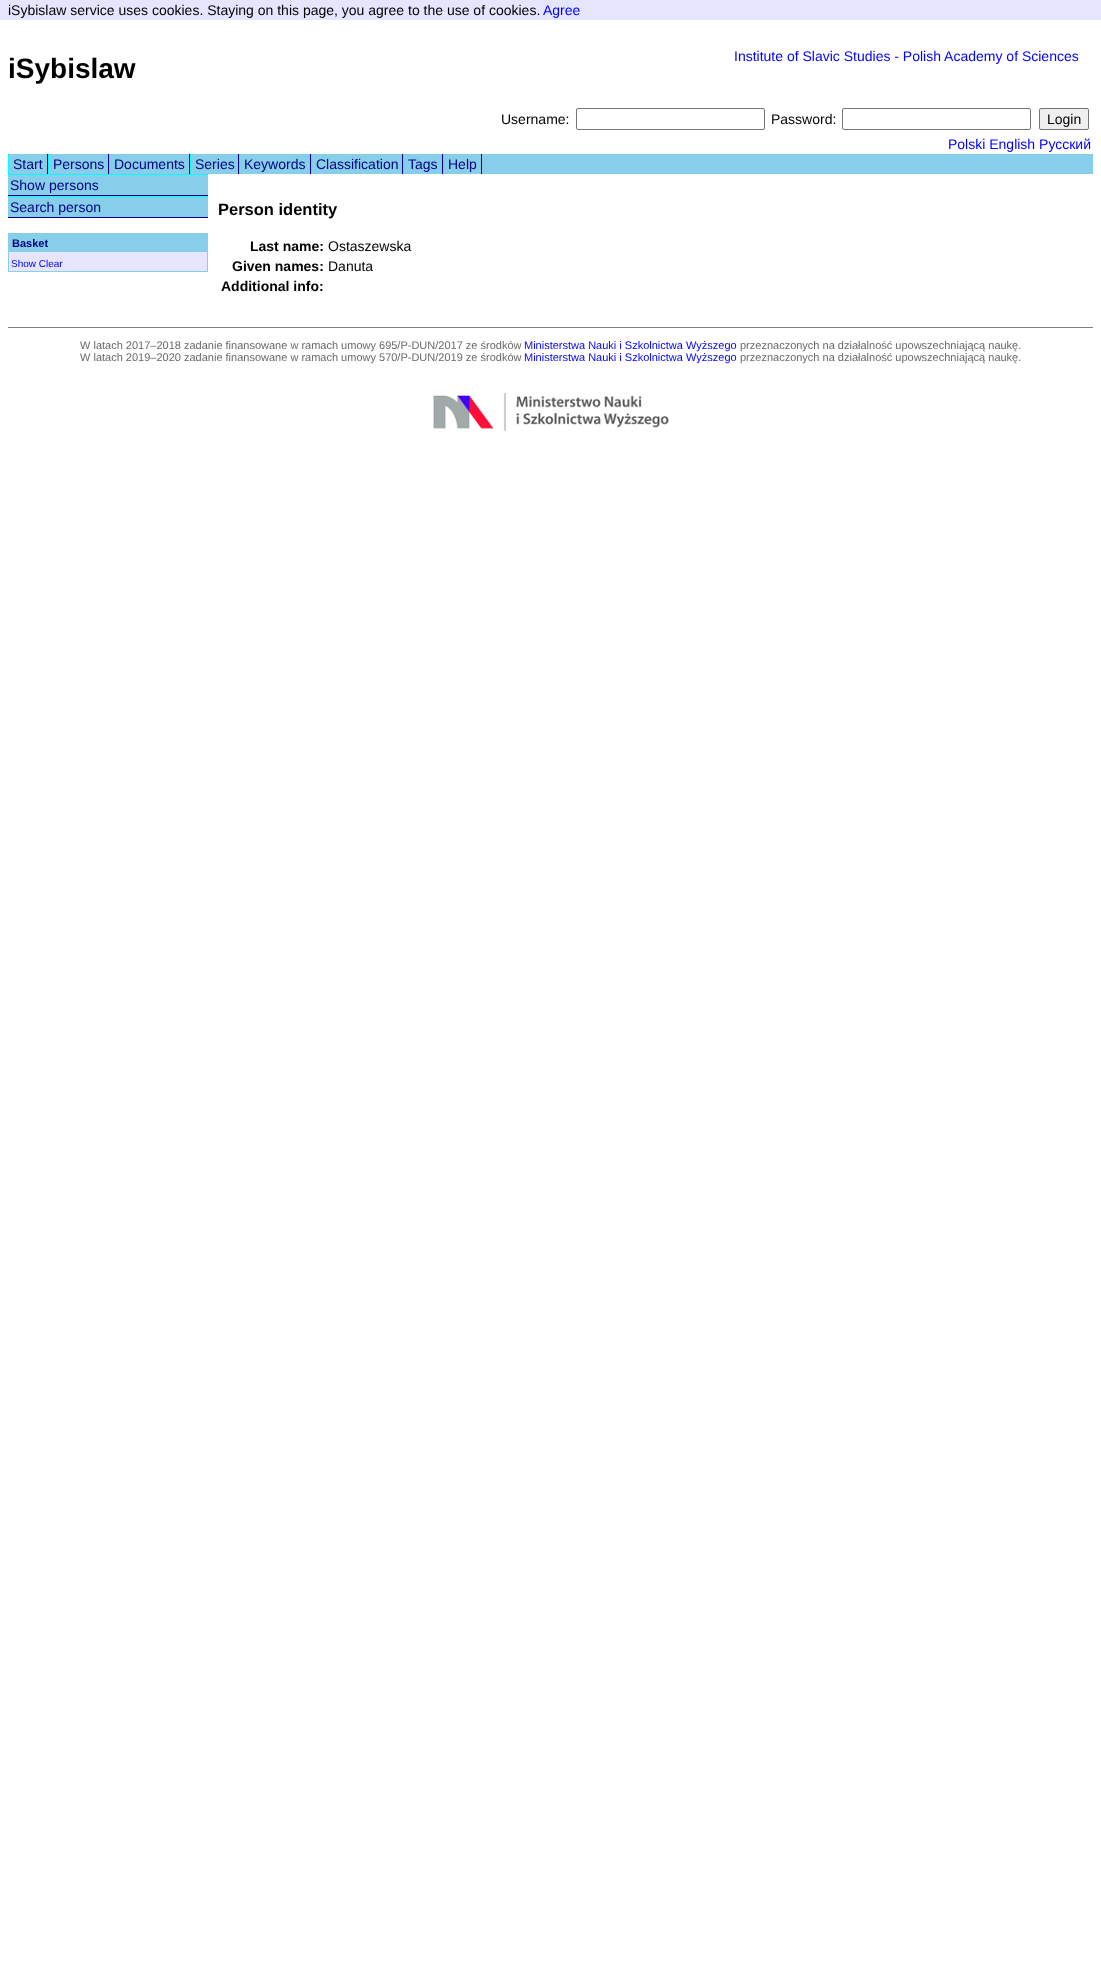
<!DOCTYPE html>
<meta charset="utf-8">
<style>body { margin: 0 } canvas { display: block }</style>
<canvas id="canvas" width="1101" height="1964"></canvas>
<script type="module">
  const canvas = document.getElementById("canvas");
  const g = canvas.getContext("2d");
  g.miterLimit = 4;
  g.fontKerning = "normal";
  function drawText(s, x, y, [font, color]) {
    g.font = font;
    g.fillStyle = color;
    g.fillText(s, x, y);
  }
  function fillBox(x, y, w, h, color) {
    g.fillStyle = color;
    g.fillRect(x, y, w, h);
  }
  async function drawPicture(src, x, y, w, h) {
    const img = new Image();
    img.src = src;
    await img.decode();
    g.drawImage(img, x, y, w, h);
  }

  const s1 = ["14px Liberation Sans", "#000000"];
  const s2 = ["14px Liberation Sans", "#0000FF"];
  const s3 = ["bold 28px Liberation Sans", "#000000"];
  const s4 = ["14px Liberation Sans", "#000080"];
  const s5 = ["bold 11px Liberation Sans", "#000080"];
  const s6 = ["10px Liberation Sans", "#0000FF"];
  const s7 = ["bold 16.5px Liberation Sans", "#000000"];
  const s8 = ["bold 14px Liberation Sans", "#000000"];
  const s9 = ["11px Liberation Sans", "#696969"];
  const s10 = ["11px Liberation Sans", "#0000FF"];

  fillBox(0, 0, 1101, 1964, "#FFFFFF");
  fillBox(0, 0, 1101, 20, "#E5E5FF");
  drawText("iSybislaw service uses cookies. Staying on this page, you agree to the use of cookies.", 8, 15, s1);
  drawText("Agree", 543, 15, s2);
  drawText("iSybislaw", 8, 78, s3);
  drawText("Institute of Slavic Studies - Polish Academy of Sciences", 734, 61, s2);
  drawText("Username:", 501, 124, s1);
  g.beginPath();
  g.roundRect(576.5, 108.5, 188, 21, 1.5);
  g.strokeStyle = "#767676";
  g.stroke();
  drawText("Password:", 771, 124, s1);
  g.beginPath();
  g.roundRect(842.5, 108.5, 188, 21, 1.5);
  g.stroke();
  g.fillStyle = "#EFEFEF";
  g.beginPath();
  g.roundRect(1039.5, 108.5, 49, 21, 1.5);
  g.fill();
  g.stroke();
  drawText("Login", 1047, 124, s1);
  drawText("Polski English Русский", 948, 149, s2);
  fillBox(9, 154, 1084, 20, "#87CEEB");
  fillBox(47, 154, 1, 20, "#000080");
  fillBox(8, 154, 1, 20, "#00FFFF");
  drawText("Start", 13, 169, s4);
  fillBox(108, 154, 1, 20, "#000080");
  fillBox(48, 154, 1, 20, "#00FFFF");
  drawText("Persons", 53, 169, s4);
  fillBox(189, 154, 1, 20, "#000080");
  fillBox(109, 154, 1, 20, "#00FFFF");
  drawText("Documents", 114, 169, s4);
  fillBox(238, 154, 1, 20, "#000080");
  fillBox(190, 154, 1, 20, "#00FFFF");
  drawText("Series", 195, 169, s4);
  fillBox(310, 154, 1, 20, "#000080");
  fillBox(239, 154, 1, 20, "#00FFFF");
  drawText("Keywords", 244, 169, s4);
  fillBox(402, 154, 1, 20, "#000080");
  fillBox(311, 154, 1, 20, "#00FFFF");
  drawText("Classification", 316, 169, s4);
  fillBox(442, 154, 1, 20, "#000080");
  fillBox(403, 154, 1, 20, "#00FFFF");
  drawText("Tags", 408, 169, s4);
  fillBox(481, 154, 1, 20, "#000080");
  fillBox(443, 154, 1, 20, "#00FFFF");
  drawText("Help", 448, 169, s4);
  fillBox(8, 175, 200, 42, "#87CEEB");
  fillBox(8, 174, 200, 1, "#00FFFF");
  fillBox(8, 195, 200, 1, "#000080");
  drawText("Show persons", 10, 190, s4);
  fillBox(8, 196, 200, 1, "#00FFFF");
  fillBox(8, 217, 200, 1, "#000080");
  drawText("Search person", 10, 212, s4);
  fillBox(9, 252, 198, 19, "#E5E5FF");
  g.strokeStyle = "#87CEEB";
  g.strokeRect(8.5, 233.5, 199, 38);
  fillBox(9, 234, 198, 18, "#87CEEB");
  drawText("Basket", 12, 247, s5);
  drawText("Show Clear", 11, 267, s6);
  drawText("Person identity", 218, 215, s7);
  drawText("Last name:", 250, 251, s8);
  drawText("Ostaszewska", 328, 251, s1);
  drawText("Given names:", 232, 271, s8);
  drawText("Danuta", 328, 271, s1);
  drawText("Additional info:", 221, 291, s8);
  fillBox(8, 327, 1085, 1, "#808080");
  drawText("W latach 2017–2018 zadanie finansowane w ramach umowy 695/P-DUN/2017 ze środków", 80, 349, s9);
  drawText("Ministerstwa Nauki i Szkolnictwa Wyższego", 524, 349, s10);
  drawText("przeznaczonych na działalność upowszechniającą naukę.", 740, 349, s9);
  drawText("W latach 2019–2020 zadanie finansowane w ramach umowy 570/P-DUN/2019 ze środków", 80, 361, s9);
  drawText("Ministerstwa Nauki i Szkolnictwa Wyższego", 524, 361, s10);
  drawText("przeznaczonych na działalność upowszechniającą naukę.", 740, 361, s9);
  await drawPicture("pic1.png", 433, 363, 266, 69);
</script>
